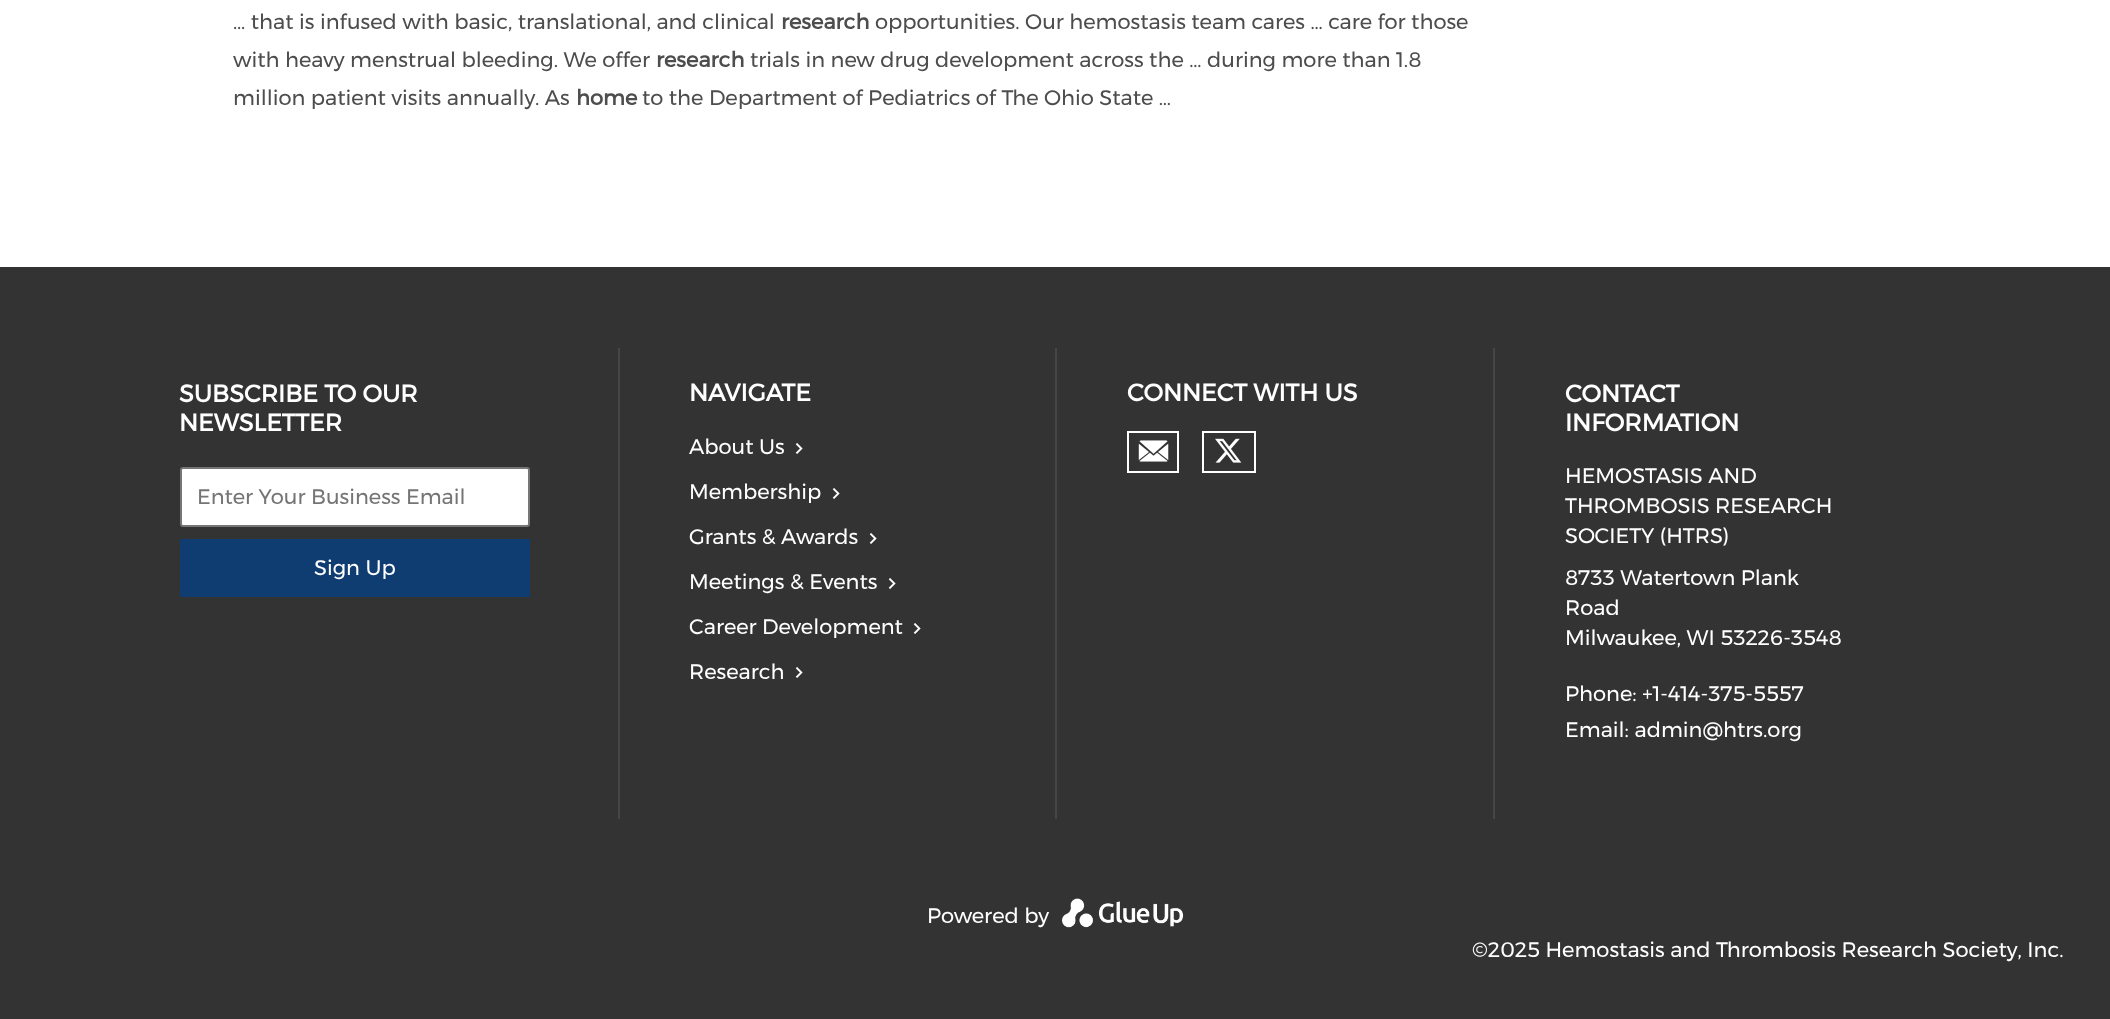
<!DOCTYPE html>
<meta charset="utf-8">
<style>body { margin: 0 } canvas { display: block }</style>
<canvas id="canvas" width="2110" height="1019"></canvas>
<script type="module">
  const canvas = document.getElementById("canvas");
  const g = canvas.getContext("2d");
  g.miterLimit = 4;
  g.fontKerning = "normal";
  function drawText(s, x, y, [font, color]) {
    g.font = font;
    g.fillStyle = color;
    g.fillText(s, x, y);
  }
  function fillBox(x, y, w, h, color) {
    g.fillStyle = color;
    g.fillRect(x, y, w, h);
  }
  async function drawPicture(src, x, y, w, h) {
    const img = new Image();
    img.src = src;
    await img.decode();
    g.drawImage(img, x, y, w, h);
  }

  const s1 = ["21px Montserrat", "#4D4D4D"];
  const s2 = ["bold 21px Montserrat", "#4D4D4D"];
  const s3 = ["bold 24px Montserrat", "#FFFFFF"];
  const s4 = ["21px Montserrat", "#757575"];
  const s5 = ["21px Montserrat", "#FFFFFF"];
  const s6 = ["39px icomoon", "#FFFFFF"];

  fillBox(0, 0, 2110, 1019, "#FFFFFF");
  drawText("… that is infused with basic, translational, and clinical", 233, 29, s1);
  drawText("research", 781, 29, s2);
  drawText("opportunities. Our hemostasis team cares … care for those", 875, 29, s1);
  drawText("with heavy menstrual bleeding. We offer", 233, 67, s1);
  drawText("research", 656, 67, s2);
  drawText("trials in new drug development across the … during more than 1.8", 750, 67, s1);
  drawText("million patient visits annually. As", 233, 105, s1);
  drawText("home", 576, 105, s2);
  drawText("to the Department of Pediatrics of The Ohio State …", 642, 105, s1);
  fillBox(0, 267, 2110, 752, "#333333");
  drawText("SUBSCRIBE TO OUR", 179, 402, s3);
  drawText("NEWSLETTER", 179, 431, s3);
  g.beginPath();
  g.roundRect(181, 468, 348, 58, 2);
  g.fill();
  g.strokeStyle = "#767676";
  g.lineWidth = 2;
  g.stroke();
  drawText("Enter Your Business Email", 197, 504, s4);
  fillBox(180, 539, 350, 58, "#0F3D71");
  drawText("Sign Up", 314, 575, s5);
  fillBox(618, 348, 2, 471, "#464646");
  drawText("NAVIGATE", 689, 401, s3);
  drawText("About Us", 689, 454, s5);
  g.font = "23px icomoon";
  g.save();
  g.translate(809, 460);
  g.rotate(-90 * Math.PI / 180);
  g.fillText("9", 0, 0);
  g.restore();
  drawText("Membership", 689, 499, s5);
  g.font = "23px icomoon";
  g.save();
  g.translate(846, 505);
  g.rotate(-90 * Math.PI / 180);
  g.fillText("9", 0, 0);
  g.restore();
  drawText("Grants & Awards", 689, 544, s5);
  g.font = "23px icomoon";
  g.save();
  g.translate(883, 550);
  g.rotate(-90 * Math.PI / 180);
  g.fillText("9", 0, 0);
  g.restore();
  drawText("Meetings & Events", 689, 589, s5);
  g.font = "23px icomoon";
  g.save();
  g.translate(902, 595);
  g.rotate(-90 * Math.PI / 180);
  g.fillText("9", 0, 0);
  g.restore();
  drawText("Career Development", 689, 634, s5);
  g.font = "23px icomoon";
  g.save();
  g.translate(927, 640);
  g.rotate(-90 * Math.PI / 180);
  g.fillText("9", 0, 0);
  g.restore();
  drawText("Research", 689, 679, s5);
  g.font = "23px icomoon";
  g.save();
  g.translate(809, 684);
  g.rotate(-90 * Math.PI / 180);
  g.fillText("9", 0, 0);
  g.restore();
  fillBox(1055, 348, 2, 471, "#464646");
  drawText("CONNECT WITH US", 1127, 401, s3);
  g.strokeStyle = "#FFFFFF";
  g.strokeRect(1128, 432, 50, 40);
  drawText("8", 1134, 468, s6);
  g.strokeRect(1203, 432, 52, 40);
  await drawPicture("pic1.png", 1215, 438, 27, 25);
  fillBox(1493, 348, 2, 471, "#464646");
  drawText("CONTACT", 1565, 402, s3);
  drawText("INFORMATION", 1565, 431, s3);
  drawText("HEMOSTASIS AND", 1565, 483, s5);
  drawText("THROMBOSIS RESEARCH", 1565, 513, s5);
  drawText("SOCIETY (HTRS)", 1565, 543, s5);
  drawText("8733 Watertown Plank", 1565, 585, s5);
  drawText("Road", 1565, 615, s5);
  drawText("Milwaukee, WI 53226-3548", 1565, 645, s5);
  drawText("Phone: +1-414-375-5557", 1565, 701, s5);
  drawText("Email: admin@htrs.org", 1565, 737, s5);
  drawText("Powered by", 927, 923, s5);
  await drawPicture("pic2.png", 1062, 898, 122, 30);
  drawText("©2025 Hemostasis and Thrombosis Research Society, Inc.", 1472, 957, s5);
</script>
